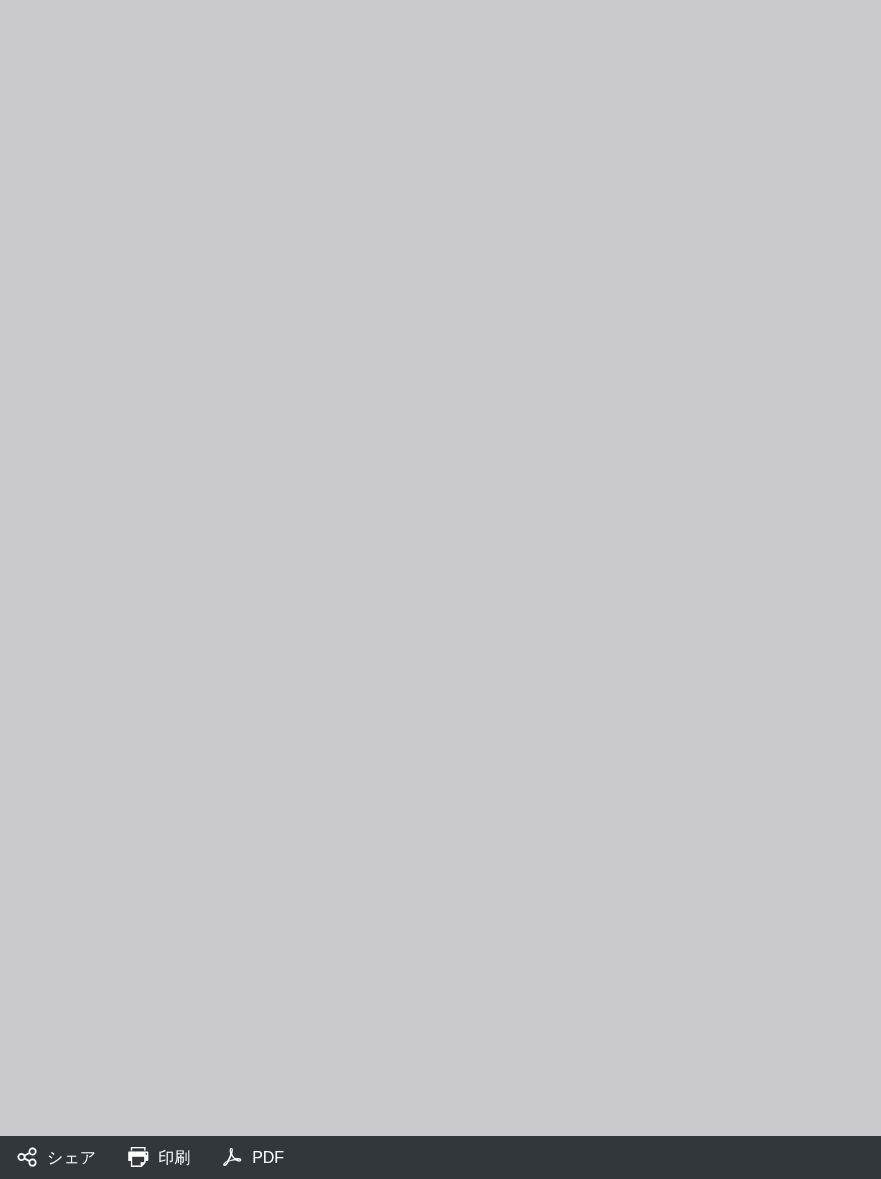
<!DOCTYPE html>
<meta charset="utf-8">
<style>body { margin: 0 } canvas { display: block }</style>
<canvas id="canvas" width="881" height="1179"></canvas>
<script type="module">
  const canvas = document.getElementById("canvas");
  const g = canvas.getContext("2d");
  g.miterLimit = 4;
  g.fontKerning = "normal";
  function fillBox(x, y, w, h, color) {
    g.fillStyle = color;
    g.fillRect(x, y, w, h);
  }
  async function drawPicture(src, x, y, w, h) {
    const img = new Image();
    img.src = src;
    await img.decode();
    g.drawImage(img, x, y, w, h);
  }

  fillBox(0, 0, 881, 1179, "#FFFFFF");
  await drawPicture("pic1.png", 0, 0, 881, 1179);
</script>
